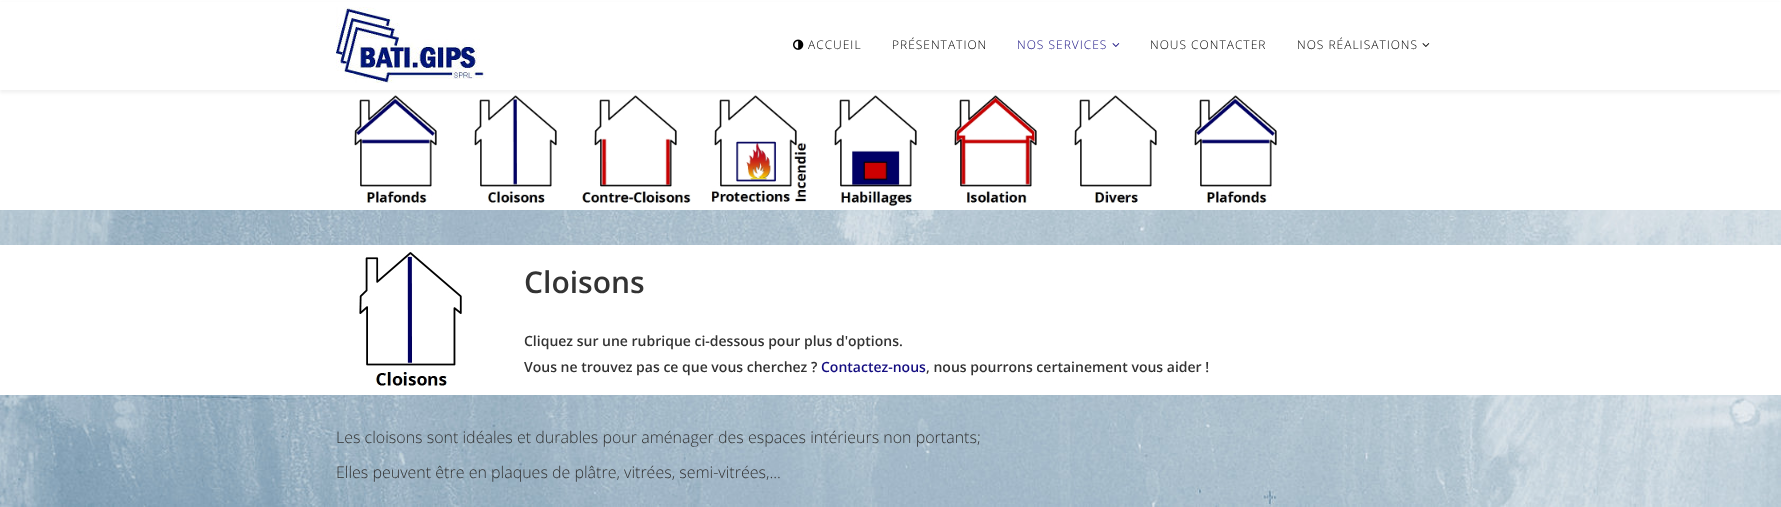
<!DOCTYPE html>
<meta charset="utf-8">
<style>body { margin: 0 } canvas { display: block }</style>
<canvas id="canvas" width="1781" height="507"></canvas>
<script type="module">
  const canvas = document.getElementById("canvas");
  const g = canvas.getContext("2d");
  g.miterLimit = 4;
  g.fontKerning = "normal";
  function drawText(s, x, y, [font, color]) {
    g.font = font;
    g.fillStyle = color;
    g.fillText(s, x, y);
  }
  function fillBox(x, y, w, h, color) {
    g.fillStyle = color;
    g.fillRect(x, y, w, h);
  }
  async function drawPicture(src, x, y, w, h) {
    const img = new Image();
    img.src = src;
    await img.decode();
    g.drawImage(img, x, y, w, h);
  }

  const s1 = ["300 12px Open Sans", "#000000"];
  const s2 = ["300 12px Open Sans", "#140D80"];
  const s3 = ["600 30px Open Sans", "#333333"];
  const s4 = ["600 14px Open Sans", "#333333"];
  const s5 = ["600 14px Open Sans", "#140D80"];
  const s6 = ["300 16px Open Sans", "#333333"];

  fillBox(0, 0, 1781, 507, "#FFFFFF");
  await drawPicture("pic1.png", 0, 210, 1781, 297);
  await drawPicture("pic6.png", 354, 95, 83, 108);
  await drawPicture("pic7.png", 474, 95, 83, 108);
  await drawPicture("pic8.png", 582, 95, 109, 108);
  await drawPicture("pic9.png", 711, 95, 96, 107);
  await drawPicture("pic10.png", 834, 95, 83, 111);
  await drawPicture("pic11.png", 954, 95, 83, 108);
  await drawPicture("pic12.png", 1074, 95, 83, 108);
  await drawPicture("pic6.png", 1194, 95, 83, 108);
  g.fillStyle = "rgba(0, 0, 0, 0.05)";
  g.filter = "blur(1.5px)";
  g.beginPath();
  g.rect(0, 3, 1781, 90);
  g.fill();
  g.filter = "none";
  fillBox(0, 2, 1781, 88, "#FFFFFF");
  await drawPicture("pic2.png", 336, 7, 150, 76);
  await drawPicture("pic3.png", 793, 39, 11, 11);
  g.letterSpacing = "1px";
  drawText("ACCUEIL", 808, 49, s1);
  drawText("PRÉSENTATION", 892, 49, s1);
  drawText("NOS SERVICES", 1017, 49, s2);
  await drawPicture("pic4.png", 1112, 43, 8, 4);
  drawText("NOUS CONTACTER", 1150, 49, s1);
  drawText("NOS RÉALISATIONS", 1297, 49, s1);
  await drawPicture("pic5.png", 1422, 43, 8, 4);
  fillBox(0, 245, 1781, 150, "#FFFFFF");
  await drawPicture("pic13.png", 359, 252, 103, 134);
  g.letterSpacing = "0px";
  drawText("Cloisons", 524, 293, s3);
  drawText("Cliquez sur une rubrique ci-dessous pour plus d'options.", 524, 346, s4);
  drawText("Vous ne trouvez pas ce que vous cherchez ?", 524, 372, s4);
  drawText("Contactez-nous", 821, 372, s5);
  drawText(", nous pourrons certainement vous aider !", 926, 372, s4);
  drawText("Les cloisons sont idéales et durables pour aménager des espaces intérieurs non portants;", 336, 443, s6);
  drawText("Elles peuvent être en plaques de plâtre, vitrées, semi-vitrées,...", 336, 478, s6);
</script>
